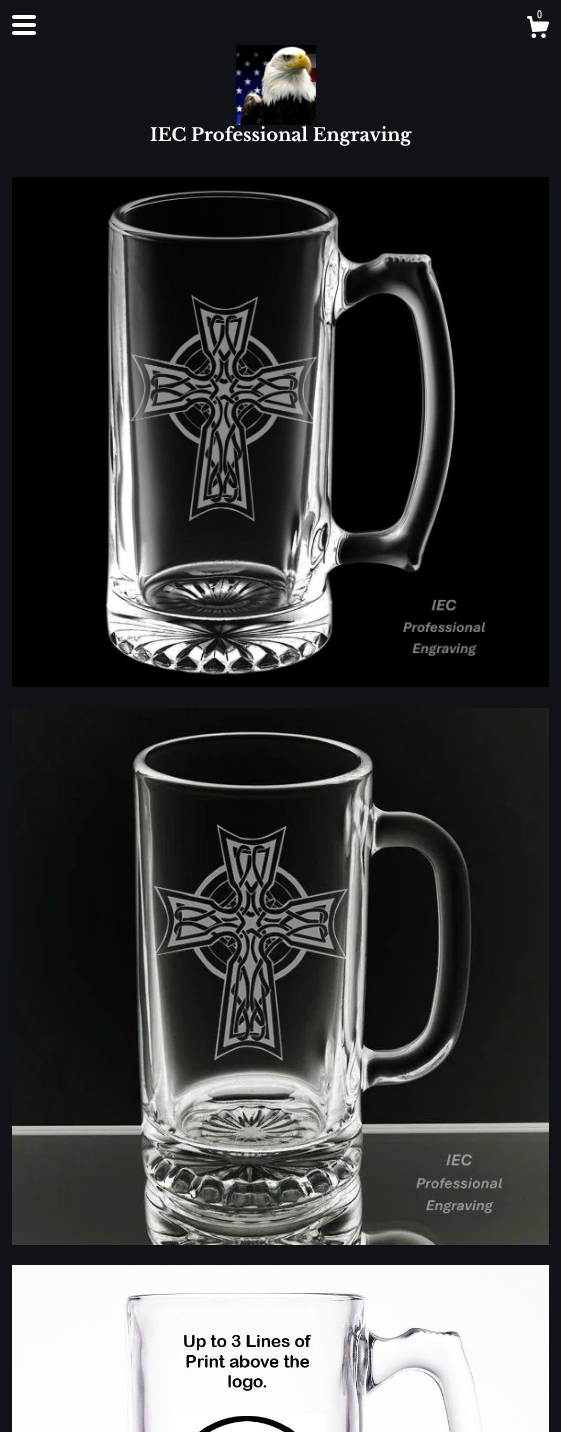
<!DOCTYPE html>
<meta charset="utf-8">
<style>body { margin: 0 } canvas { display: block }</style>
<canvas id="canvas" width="561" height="1432"></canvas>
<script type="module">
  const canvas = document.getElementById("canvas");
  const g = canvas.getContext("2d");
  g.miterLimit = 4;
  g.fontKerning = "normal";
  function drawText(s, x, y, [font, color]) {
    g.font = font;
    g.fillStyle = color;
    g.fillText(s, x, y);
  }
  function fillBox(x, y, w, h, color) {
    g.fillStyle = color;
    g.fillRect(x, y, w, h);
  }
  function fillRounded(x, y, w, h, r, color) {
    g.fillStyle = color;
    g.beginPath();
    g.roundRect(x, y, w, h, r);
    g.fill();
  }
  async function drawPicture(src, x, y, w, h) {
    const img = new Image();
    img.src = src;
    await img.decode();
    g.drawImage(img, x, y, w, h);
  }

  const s1 = ["11px Archivo Narrow", "#FFFFFF"];
  const s2 = ["bold 18px Libre Baskerville", "#FFFFFF"];

  fillBox(0, 0, 561, 1432, "#0F1217");
  fillRounded(12, 15, 24, 4, 2, "#FFFFFF");
  fillRounded(12, 23, 24, 4, 2, "#FFFFFF");
  fillRounded(12, 31, 24, 4, 2, "#FFFFFF");
  await drawPicture("pic1.png", 527, 16, 22, 22);
  drawText("0", 537, 18, s1);
  await drawPicture("pic2.png", 235, 45, 81, 80);
  drawText("IEC Professional Engraving", 150, 141, s2);
  await drawPicture("pic3.png", 12, 177, 537, 510);
  await drawPicture("pic4.png", 12, 708, 537, 537);
  await drawPicture("pic5.png", 12, 1265, 537, 167);
</script>
